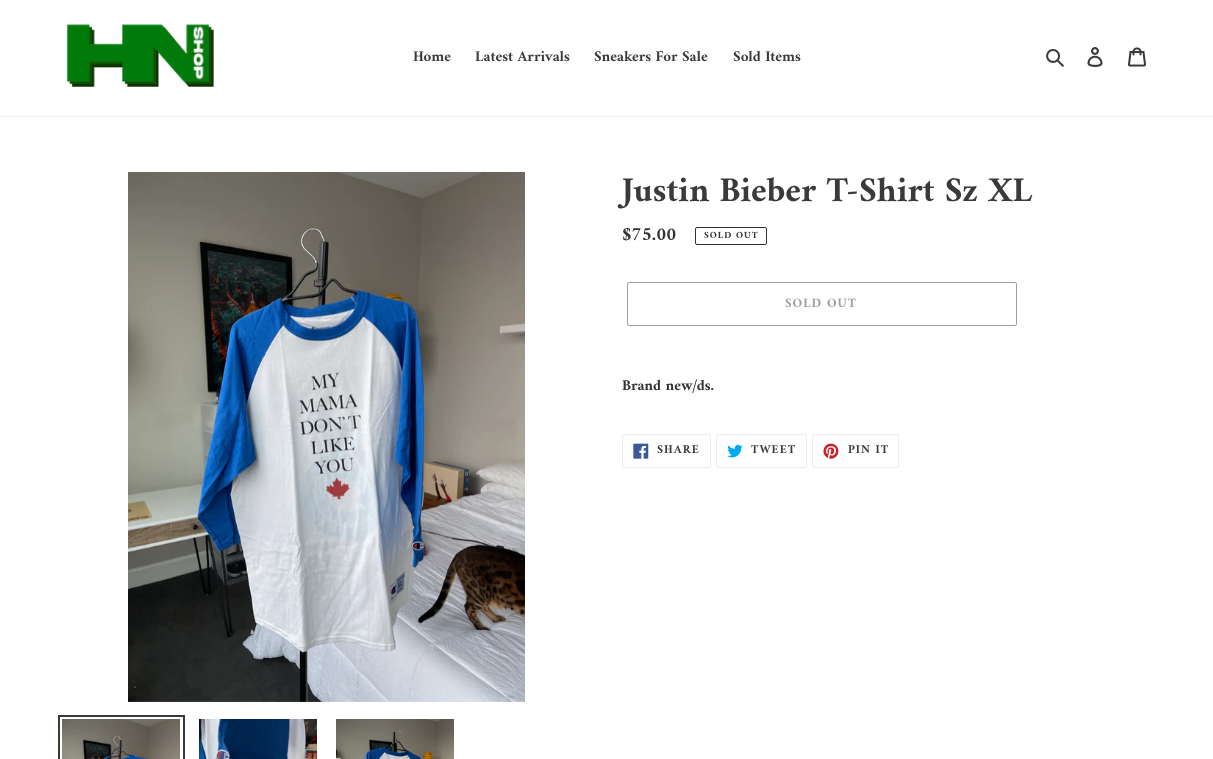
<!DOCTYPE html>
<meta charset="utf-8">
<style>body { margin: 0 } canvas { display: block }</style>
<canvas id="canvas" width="1213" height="759"></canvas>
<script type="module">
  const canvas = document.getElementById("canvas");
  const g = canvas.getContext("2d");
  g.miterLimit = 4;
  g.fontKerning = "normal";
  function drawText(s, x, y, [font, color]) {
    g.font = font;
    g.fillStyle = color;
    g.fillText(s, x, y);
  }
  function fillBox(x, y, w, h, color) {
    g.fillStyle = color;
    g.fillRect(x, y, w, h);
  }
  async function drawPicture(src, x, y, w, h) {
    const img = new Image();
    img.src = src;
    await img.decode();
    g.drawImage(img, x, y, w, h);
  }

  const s1 = ["bold 15px Amiri", "#3A3A3A"];
  const s2 = ["bold 35px Amiri", "#3A3A3A"];
  const s3 = ["bold 19px Amiri", "#333232"];
  const s4 = ["bold 9.5px Amiri", "#333232"];
  const s5 = ["bold 13px Amiri", "#9D9D9D"];
  const s6 = ["bold 15px Amiri", "#333232"];
  const s7 = ["bold 12px Amiri", "#3A3A3A"];

  fillBox(0, 0, 1213, 759, "#FFFFFF");
  fillBox(0, 116, 1213, 1, "#EBEBEB");
  await drawPicture("pic1.png", 66, 24, 148, 63);
  drawText("Home", 413, 61, s1);
  drawText("Latest Arrivals", 475, 61, s1);
  drawText("Sneakers For Sale", 594, 61, s1);
  drawText("Sold Items", 733, 61, s1);
  await drawPicture("pic2.png", 1046, 49, 18, 18);
  await drawPicture("pic3.png", 1087, 47, 16, 20);
  await drawPicture("pic4.png", 1128, 47, 18, 20);
  await drawPicture("pic5.png", 128, 172, 397, 530);
  g.strokeStyle = "#3A3A3A";
  g.lineWidth = 2;
  g.strokeRect(59, 716, 125, 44);
  await drawPicture("pic6.png", 62, 719, 118, 40);
  await drawPicture("pic7.png", 199, 719, 118, 40);
  await drawPicture("pic8.png", 336, 719, 118, 40);
  drawText("Justin Bieber T-Shirt Sz XL", 622, 201, s2);
  drawText("$75.00", 622, 240, s3);
  g.beginPath();
  g.roundRect(695.5, 227.5, 71, 17, 1.5);
  g.strokeStyle = "#333232";
  g.lineWidth = 1;
  g.stroke();
  g.letterSpacing = "1px";
  drawText("SOLD OUT", 704, 238, s4);
  g.beginPath();
  g.roundRect(627.5, 282.5, 389, 43, 1.5);
  g.strokeStyle = "#9D9D9D";
  g.stroke();
  drawText("SOLD OUT", 785, 307, s5);
  g.letterSpacing = "0px";
  drawText("Brand new/ds.", 622, 390, s6);
  g.beginPath();
  g.roundRect(622.5, 434.5, 88, 33, 1.5);
  g.strokeStyle = "#EBEBEB";
  g.stroke();
  await drawPicture("pic9.png", 633, 443, 16, 16);
  g.letterSpacing = "1px";
  drawText("SHARE", 657, 453, s7);
  g.beginPath();
  g.roundRect(716.5, 434.5, 90, 33, 1.5);
  g.stroke();
  await drawPicture("pic10.png", 727, 444, 16, 14);
  drawText("TWEET", 751, 453, s7);
  g.beginPath();
  g.roundRect(812.5, 434.5, 86, 33, 1.5);
  g.stroke();
  await drawPicture("pic11.png", 823, 443, 16, 16);
  drawText("PIN IT", 848, 453, s7);
</script>
